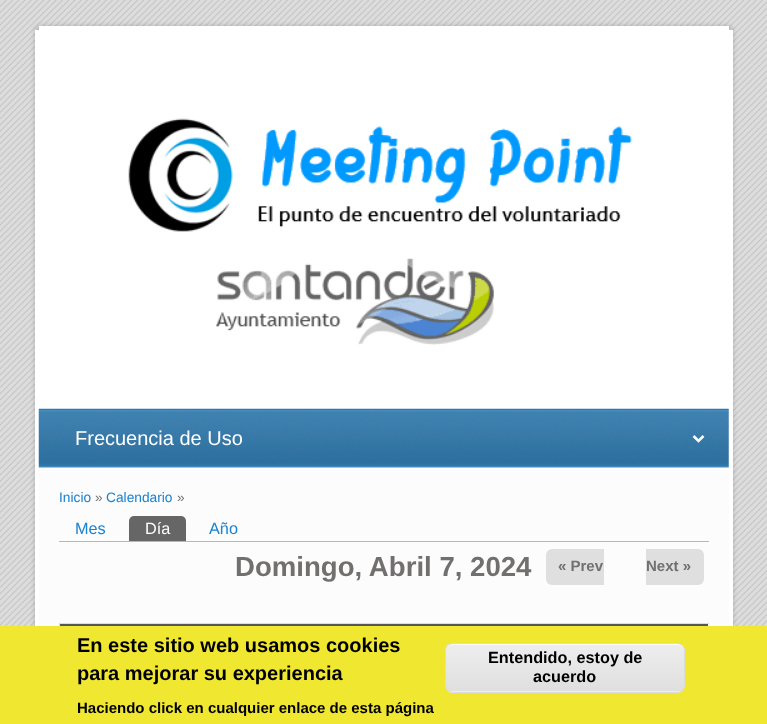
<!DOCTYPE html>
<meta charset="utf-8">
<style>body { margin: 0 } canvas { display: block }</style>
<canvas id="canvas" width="767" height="724"></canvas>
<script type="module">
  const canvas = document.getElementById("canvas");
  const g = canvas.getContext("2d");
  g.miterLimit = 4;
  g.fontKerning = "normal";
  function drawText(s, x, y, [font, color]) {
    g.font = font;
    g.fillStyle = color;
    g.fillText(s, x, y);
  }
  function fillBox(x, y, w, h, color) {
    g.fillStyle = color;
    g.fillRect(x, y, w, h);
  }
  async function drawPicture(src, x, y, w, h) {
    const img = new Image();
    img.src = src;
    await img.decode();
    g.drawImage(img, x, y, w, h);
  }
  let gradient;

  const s1 = ["20px Liberation Sans", "#FFFFFF"];
  const s2 = ["13.75px Liberation Sans", "#1982D1"];
  const s3 = ["13.75px Liberation Sans", "#726F6F"];
  const s4 = ["16.25px Liberation Sans", "#1982D1"];
  const s5 = ["16.25px Liberation Sans", "#FFFFFF"];
  const s6 = ["bold 27.6px Liberation Sans", "#726F6F"];
  const s7 = ["bold 15px Liberation Sans", "#726F6F"];
  const s8 = ["bold 20px Liberation Sans", "#000000"];
  const s9 = ["bold 15px Liberation Sans", "#000000"];
  const s10 = ["bold 16.25px Liberation Sans", "#000000"];

  fillBox(0, 0, 767, 724, "#DDDDDD");
  await drawPicture("pic1.png", 0, 0, 767, 626);
  g.fillStyle = "rgba(0, 0, 0, 0.2)";
  g.filter = "blur(2.5px)";
  g.beginPath();
  g.roundRect(35, 26, 698, 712, 6);
  g.fill();
  g.filter = "none";
  fillBox(729, 30, 4, 596, "#FFFFFF");
  fillBox(35, 30, 4, 596, "#FFFFFF");
  fillBox(39, 26, 690, 444, "#FFFFFF");
  await drawPicture("pic2.png", 128, 118, 504, 114);
  await drawPicture("pic3.png", 216, 258, 278, 87);
  await drawPicture("pic4.png", 38, 408, 691, 60);
  g.beginPath();
  g.moveTo(693.5, 436);
  g.lineTo(698.5, 441);
  g.lineTo(703.5, 436);
  g.strokeStyle = "#FFFFFF";
  g.lineWidth = 2.5;
  g.stroke();
  drawText("Frecuencia de Uso", 75, 445, s1);
  fillBox(39, 470, 690, 156, "#FCFCFC");
  drawText("Inicio", 59, 502, s2);
  drawText("»", 95, 502, s3);
  drawText("Calendario", 106, 502, s2);
  drawText("»", 177, 502, s3);
  fillBox(59, 541, 650, 1, "#B7B7B7");
  drawText("Mes", 75, 534, s4);
  g.fillStyle = "#666666";
  g.beginPath();
  g.roundRect(129, 516, 57, 25, [5, 5, 0, 0]);
  g.fill();
  drawText("Día", 145, 534, s5);
  drawText("Año", 209, 534, s4);
  drawText("Domingo, Abril 7, 2024", 235, 576, s6);
  g.fillStyle = "#DFDFDF";
  g.beginPath();
  g.roundRect(546, 549, 58, 36, [6, 0, 0, 6]);
  g.fill();
  drawText("« Prev", 558, 571, s7);
  g.fillStyle = "#DFDFDF";
  g.beginPath();
  g.roundRect(646, 549, 58, 36, [0, 6, 6, 0]);
  g.fill();
  drawText("Next »", 646, 571, s7);
  fillBox(708, 624, 1, 2, "#FFFFFF");
  fillBox(59, 623, 650, 1, "#DDDDDD");
  fillBox(59, 623, 1, 3, "#DDDDDD");
  fillBox(60, 624, 648, 2, "#555555");
  fillBox(0, 626, 767, 98, "#F0E730");
  drawText("En este sitio web usamos cookies", 77, 652, s8);
  drawText("para mejorar su experiencia", 77, 680, s8);
  drawText("Haciendo click en cualquier enlace de esta página", 77, 713, s9);
  g.save();
  g.beginPath();
  g.roundRect(445, 643, 240, 50, 8);
  g.clip();
  gradient = g.createLinearGradient(565, 644, 565, 691);
  gradient.addColorStop(0.05, "#EDEDED");
  gradient.addColorStop(1, "#DFDFDF");
  g.fillStyle = gradient;
  g.fillRect(445, 644, 240, 47);
  gradient = g.createLinearGradient(565, 691, 565, 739);
  gradient.addColorStop(0.05, "#EDEDED");
  gradient.addColorStop(1, "#DFDFDF");
  g.fillStyle = gradient;
  g.fillRect(445, 691, 240, 2);
  g.restore();
  g.fillStyle = "#FFFFFF";
  g.beginPath();
  g.moveTo(452, 645);
  g.lineTo(678, 645);
  g.bezierCurveTo(681, 645, 684, 648, 684, 651);
  g.lineTo(684, 650);
  g.bezierCurveTo(684, 647, 681, 644, 678, 644);
  g.lineTo(452, 644);
  g.bezierCurveTo(449, 644, 446, 647, 446, 650);
  g.lineTo(446, 651);
  g.bezierCurveTo(446, 648, 449, 645, 452, 645);
  g.closePath();
  g.fill();
  g.beginPath();
  g.roundRect(445.5, 643.5, 239, 49, 7.5);
  g.strokeStyle = "#DCDCDC";
  g.lineWidth = 1;
  g.stroke();
  drawText("Entendido, estoy de", 488, 663, s10);
  drawText("acuerdo", 533, 682, s10);
</script>
